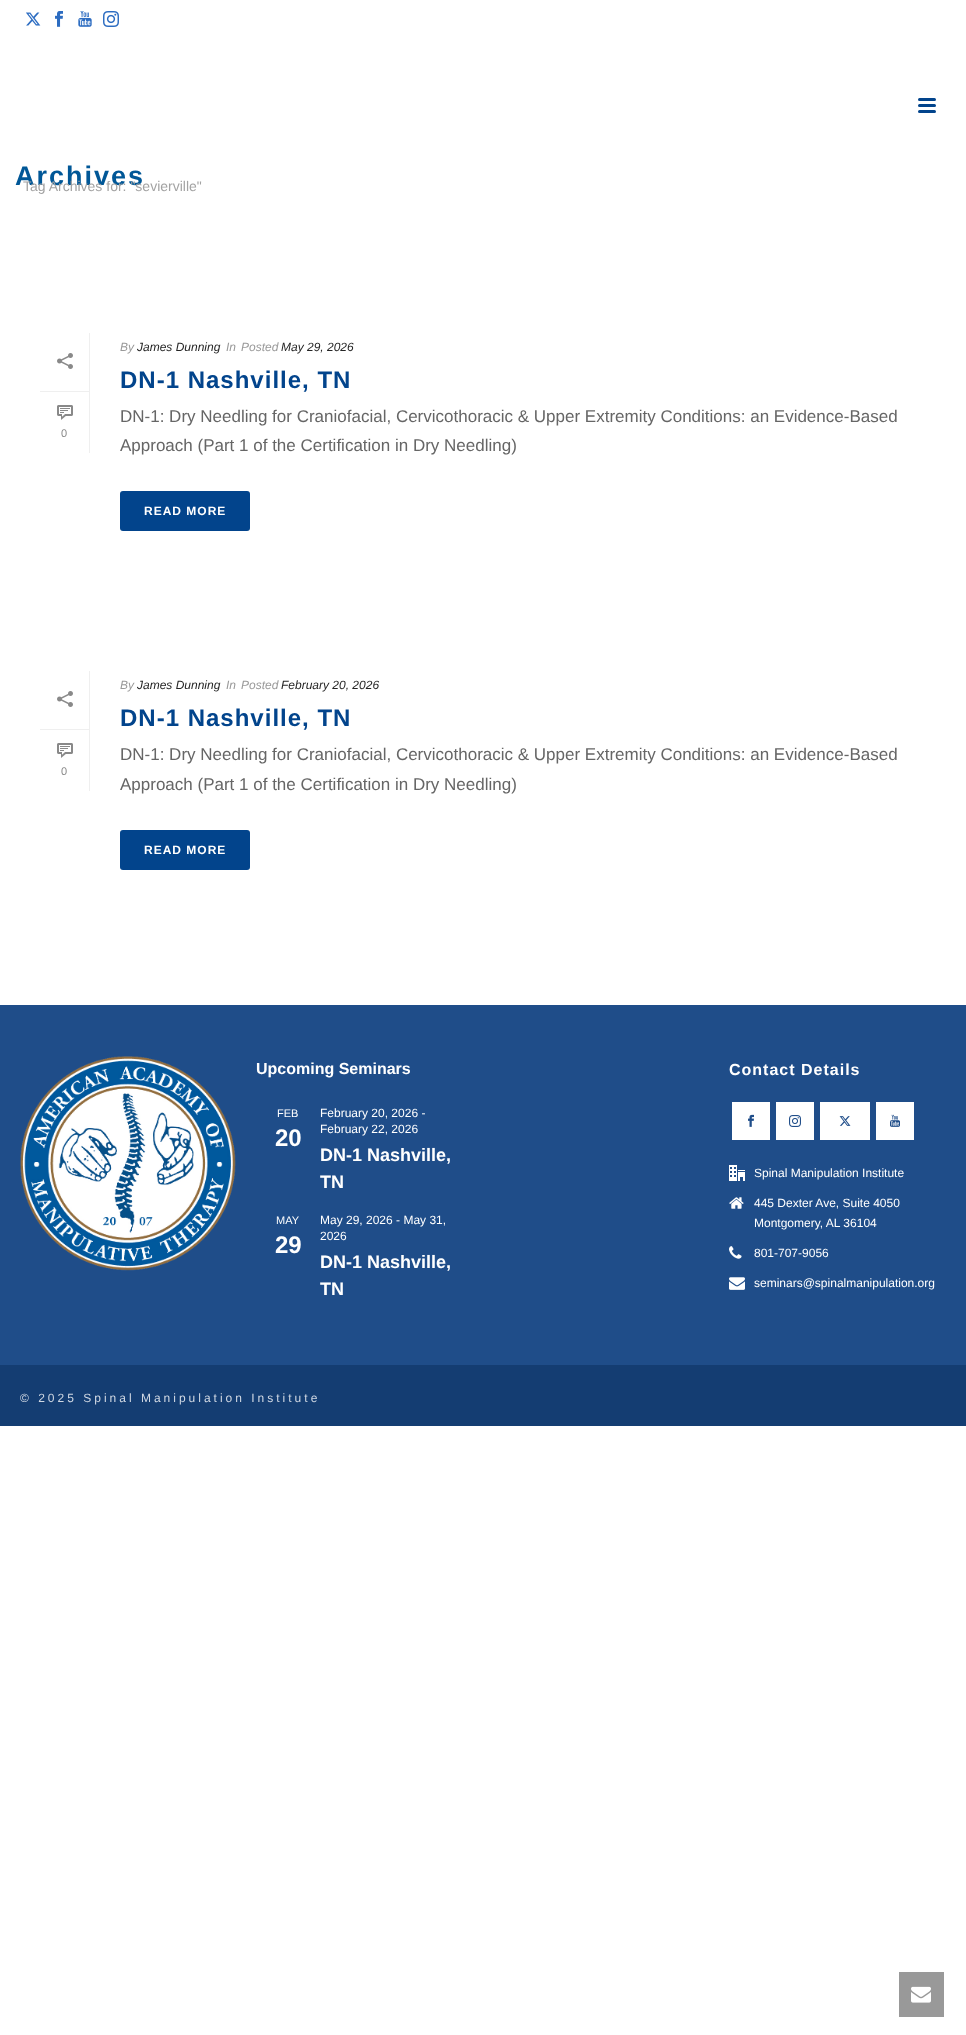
<!DOCTYPE html>
<meta charset="utf-8">
<style>body { margin: 0 } canvas { display: block }</style>
<canvas id="canvas" width="966" height="2035"></canvas>
<script type="module">
  const canvas = document.getElementById("canvas");
  const g = canvas.getContext("2d");
  g.miterLimit = 4;
  g.fontKerning = "normal";
  function drawText(s, x, y, [font, color]) {
    g.font = font;
    g.fillStyle = color;
    g.fillText(s, x, y);
  }
  function fillBox(x, y, w, h, color) {
    g.fillStyle = color;
    g.fillRect(x, y, w, h);
  }
  function fillRounded(x, y, w, h, r, color) {
    g.fillStyle = color;
    g.beginPath();
    g.roundRect(x, y, w, h, r);
    g.fill();
  }
  async function drawPicture(src, x, y, w, h) {
    const img = new Image();
    img.src = src;
    await img.decode();
    g.drawImage(img, x, y, w, h);
  }

  const s1 = ["bold 27px Liberation Sans", "#005797"];
  const s2 = ["14px Liberation Sans", "#A3A3A3"];
  const s3 = ["11px Liberation Sans", "#898989"];
  const s4 = ["italic 12px Liberation Sans", "#999999"];
  const s5 = ["italic 12px Liberation Sans", "#252525"];
  const s6 = ["bold 24px Liberation Sans", "#02448C"];
  const s7 = ["17px Liberation Sans", "#666666"];
  const s8 = ["bold 12px Liberation Sans", "#FFFFFF"];
  const s9 = ["bold 16px Liberation Sans", "#FFFFFF"];
  const s10 = ["11px Liberation Sans", "#FFFFFF"];
  const s11 = ["bold 24px Liberation Sans", "#FFFFFF"];
  const s12 = ["12px Liberation Sans", "#FFFFFF"];
  const s13 = ["bold 18px Liberation Sans", "#FFFFFF"];
  const s14 = ["12px Liberation Sans", "#D0D8E3"];

  fillBox(0, 0, 966, 2035, "#FFFFFF");
  await drawPicture("pic1.png", 26, 12, 15, 14);
  await drawPicture("pic2.png", 55, 11, 8, 16);
  await drawPicture("pic3.png", 78, 11, 14, 16);
  await drawPicture("pic4.png", 103, 11, 16, 16);
  fillRounded(918, 98, 18, 3, 1.5, "#02448C");
  fillRounded(918, 104, 18, 3, 1.5, "#02448C");
  fillRounded(918, 110, 18, 3, 1.5, "#02448C");
  g.letterSpacing = "2px";
  drawText("Archives", 15, 185, s1);
  g.letterSpacing = "0px";
  drawText("Tag Archives for: \"sevierville\"", 23, 191, s2);
  fillBox(89, 333, 1, 120, "#EFEFEF");
  fillBox(40, 391, 49, 1, "#EFEFEF");
  await drawPicture("pic5.png", 57, 353, 16, 16);
  await drawPicture("pic6.png", 57, 405, 16, 15);
  drawText("0", 61, 437, s3);
  drawText("By", 120, 351, s4);
  drawText("James Dunning", 137, 351, s5);
  drawText("In", 226, 351, s4);
  drawText("Posted", 241, 351, s4);
  drawText("May 29, 2026", 281, 351, s5);
  g.letterSpacing = "1px";
  drawText("DN-1 Nashville, TN", 120, 388, s6);
  g.letterSpacing = "0px";
  drawText("DN-1: Dry Needling for Craniofacial, Cervicothoracic & Upper Extremity Conditions: an Evidence-Based", 120, 422, s7);
  drawText("Approach (Part 1 of the Certification in Dry Needling)", 120, 451, s7);
  fillRounded(120, 491, 130, 40, 3, "#02448C");
  g.letterSpacing = "1px";
  drawText("READ MORE", 144, 515, s8);
  fillBox(89, 671, 1, 120, "#EFEFEF");
  fillBox(40, 729, 49, 1, "#EFEFEF");
  await drawPicture("pic5.png", 57, 691, 16, 16);
  await drawPicture("pic6.png", 57, 743, 16, 15);
  g.letterSpacing = "0px";
  drawText("0", 61, 775, s3);
  drawText("By", 120, 689, s4);
  drawText("James Dunning", 137, 689, s5);
  drawText("In", 226, 689, s4);
  drawText("Posted", 241, 689, s4);
  drawText("February 20, 2026", 281, 689, s5);
  g.letterSpacing = "1px";
  drawText("DN-1 Nashville, TN", 120, 726, s6);
  g.letterSpacing = "0px";
  drawText("DN-1: Dry Needling for Craniofacial, Cervicothoracic & Upper Extremity Conditions: an Evidence-Based", 120, 760, s7);
  drawText("Approach (Part 1 of the Certification in Dry Needling)", 120, 790, s7);
  fillRounded(120, 830, 130, 40, 3, "#02448C");
  g.letterSpacing = "1px";
  drawText("READ MORE", 144, 854, s8);
  fillBox(0, 1005, 966, 360, "#1F4D89");
  await drawPicture("pic7.png", 20, 1056, 216, 215);
  g.letterSpacing = "0px";
  drawText("Upcoming Seminars", 256, 1074, s9);
  drawText("FEB", 277, 1117, s10);
  drawText("20", 275, 1146, s11);
  drawText("February 20, 2026 -", 320, 1117, s12);
  drawText("February 22, 2026", 320, 1133, s12);
  drawText("DN-1 Nashville,", 320, 1161, s13);
  drawText("TN", 320, 1188, s13);
  drawText("MAY", 276, 1224, s10);
  drawText("29", 275, 1253, s11);
  drawText("May 29, 2026 - May 31,", 320, 1224, s12);
  drawText("2026", 320, 1240, s12);
  drawText("DN-1 Nashville,", 320, 1268, s13);
  drawText("TN", 320, 1295, s13);
  g.letterSpacing = "1px";
  drawText("Contact Details", 729, 1075, s9);
  fillBox(732, 1102, 38, 38, "#FFFFFF");
  await drawPicture("pic8.png", 748, 1114, 6, 13);
  fillBox(776, 1102, 38, 38, "#FFFFFF");
  await drawPicture("pic9.png", 789, 1115, 12, 12);
  fillBox(820, 1102, 50, 38, "#FFFFFF");
  await drawPicture("pic10.png", 839, 1116, 12, 10);
  fillBox(876, 1102, 38, 38, "#FFFFFF");
  await drawPicture("pic11.png", 890, 1114, 10, 13);
  await drawPicture("pic12.png", 729, 1165, 16, 16);
  g.letterSpacing = "0px";
  drawText("Spinal Manipulation Institute", 754, 1177, s12);
  await drawPicture("pic13.png", 729, 1197, 15, 12);
  drawText("445 Dexter Ave, Suite 4050", 754, 1207, s12);
  drawText("Montgomery, AL 36104", 754, 1227, s12);
  await drawPicture("pic14.png", 729, 1246, 13, 13);
  drawText("801-707-9056", 754, 1257, s12);
  await drawPicture("pic15.png", 729, 1277, 16, 13);
  drawText("seminars@spinalmanipulation.org", 754, 1287, s12);
  fillBox(0, 1365, 966, 61, "#143D72");
  g.letterSpacing = "3px";
  drawText("© 2025 Spinal Manipulation Institute", 20, 1402, s14);
  fillBox(899, 1972, 45, 45, "#999999");
  await drawPicture("pic16.png", 911, 1986, 20, 17);
</script>
